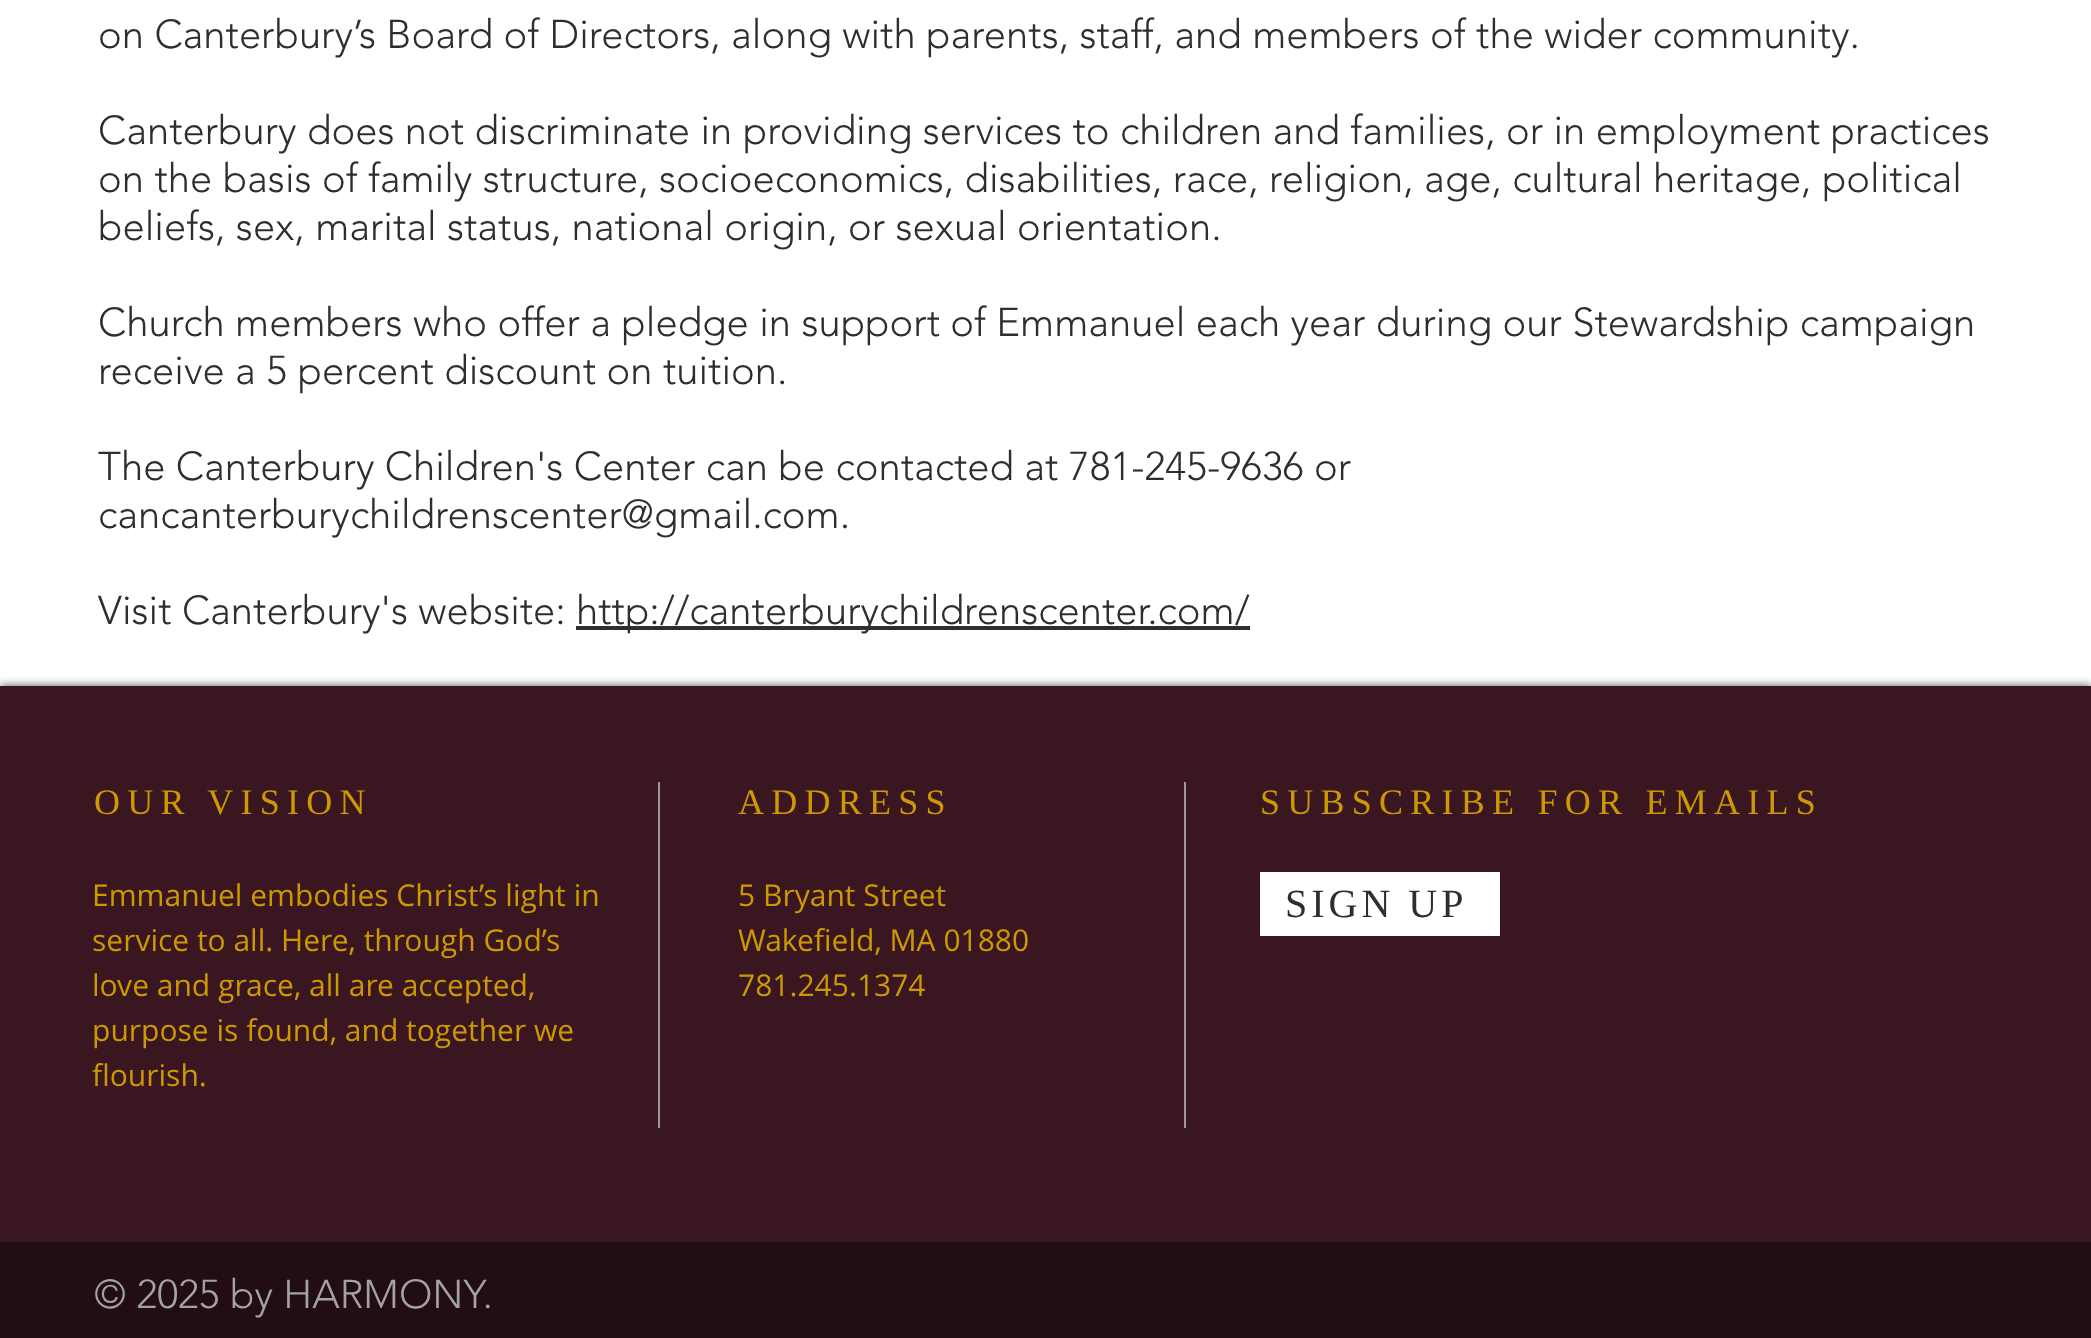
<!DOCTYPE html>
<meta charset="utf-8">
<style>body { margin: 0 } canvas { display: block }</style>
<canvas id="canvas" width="2091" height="1338"></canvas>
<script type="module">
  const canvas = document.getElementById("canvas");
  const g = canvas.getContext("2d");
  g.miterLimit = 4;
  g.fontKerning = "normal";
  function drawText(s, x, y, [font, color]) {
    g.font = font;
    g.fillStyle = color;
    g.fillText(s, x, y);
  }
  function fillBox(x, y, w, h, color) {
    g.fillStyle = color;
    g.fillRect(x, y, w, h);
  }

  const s1 = ["300 40px 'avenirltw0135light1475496'", "#2F2E2E"];
  const s2 = ["36px Liberation Serif", "#CC9900"];
  const s3 = ["30px Open Sans", "#CC9900"];
  const s4 = ["40px Liberation Serif", "#2F2E2E"];
  const s5 = ["300 40px 'avenirltw0135light1475496'", "#A3A3A0"];

  fillBox(0, 0, 2091, 1338, "#FFFFFF");
  drawText("on Canterbury’s Board of Directors, along with parents, staff, and members of the wider community.", 98, 48, s1);
  drawText("Canterbury does not discriminate in providing services to children and families, or in employment practices", 98, 144, s1);
  drawText("on the basis of family structure, socioeconomics, disabilities, race, religion, age, cultural heritage, political", 98, 192, s1);
  drawText("beliefs, sex, marital status, national origin, or sexual orientation.", 98, 240, s1);
  drawText("Church members who offer a pledge in support of Emmanuel each year during our Stewardship campaign", 98, 336, s1);
  drawText("receive a 5 percent discount on tuition.", 98, 384, s1);
  drawText("The Canterbury Children's Center can be contacted at 781-245-9636 or", 98, 480, s1);
  drawText("cancanterburychildrenscenter@gmail.com.", 98, 528, s1);
  drawText("Visit Canterbury's website:", 98, 624, s1);
  fillBox(576, 626, 674, 4, "#2F2E2E");
  drawText("http://canterburychildrenscenter.com/", 576, 624, s1);
  g.fillStyle = "rgba(0, 0, 0, 0.7)";
  g.filter = "blur(5px)";
  g.beginPath();
  g.rect(0, 686, 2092, 652);
  g.fill();
  g.filter = "none";
  fillBox(0, 686, 2091, 556, "#3A1621");
  g.letterSpacing = "7.25px";
  drawText("OUR VISION", 94, 814, s2);
  fillBox(658, 782, 2, 346, "#999999");
  drawText("ADDRESS", 738, 814, s2);
  fillBox(1184, 782, 2, 346, "#999999");
  drawText("SUBSCRIBE FOR EMAILS", 1260, 814, s2);
  g.letterSpacing = "0px";
  drawText("Emmanuel embodies Christ’s light in", 92, 906, s3);
  drawText("service to all. Here, through God’s", 92, 951, s3);
  drawText("love and grace, all are accepted,", 92, 996, s3);
  drawText("purpose is found, and together we", 92, 1041, s3);
  drawText("flourish.", 92, 1086, s3);
  drawText("5 Bryant Street", 738, 906, s3);
  drawText("Wakefield, MA 01880", 738, 951, s3);
  drawText("781.245.1374", 738, 996, s3);
  fillBox(1260, 872, 240, 64, "#FFFFFF");
  g.letterSpacing = "4px";
  drawText("SIGN UP", 1285, 917, s4);
  fillBox(0, 1242, 2091, 96, "#210D13");
  g.letterSpacing = "0px";
  drawText("© 2025 by HARMONY.", 94, 1308, s5);
</script>
